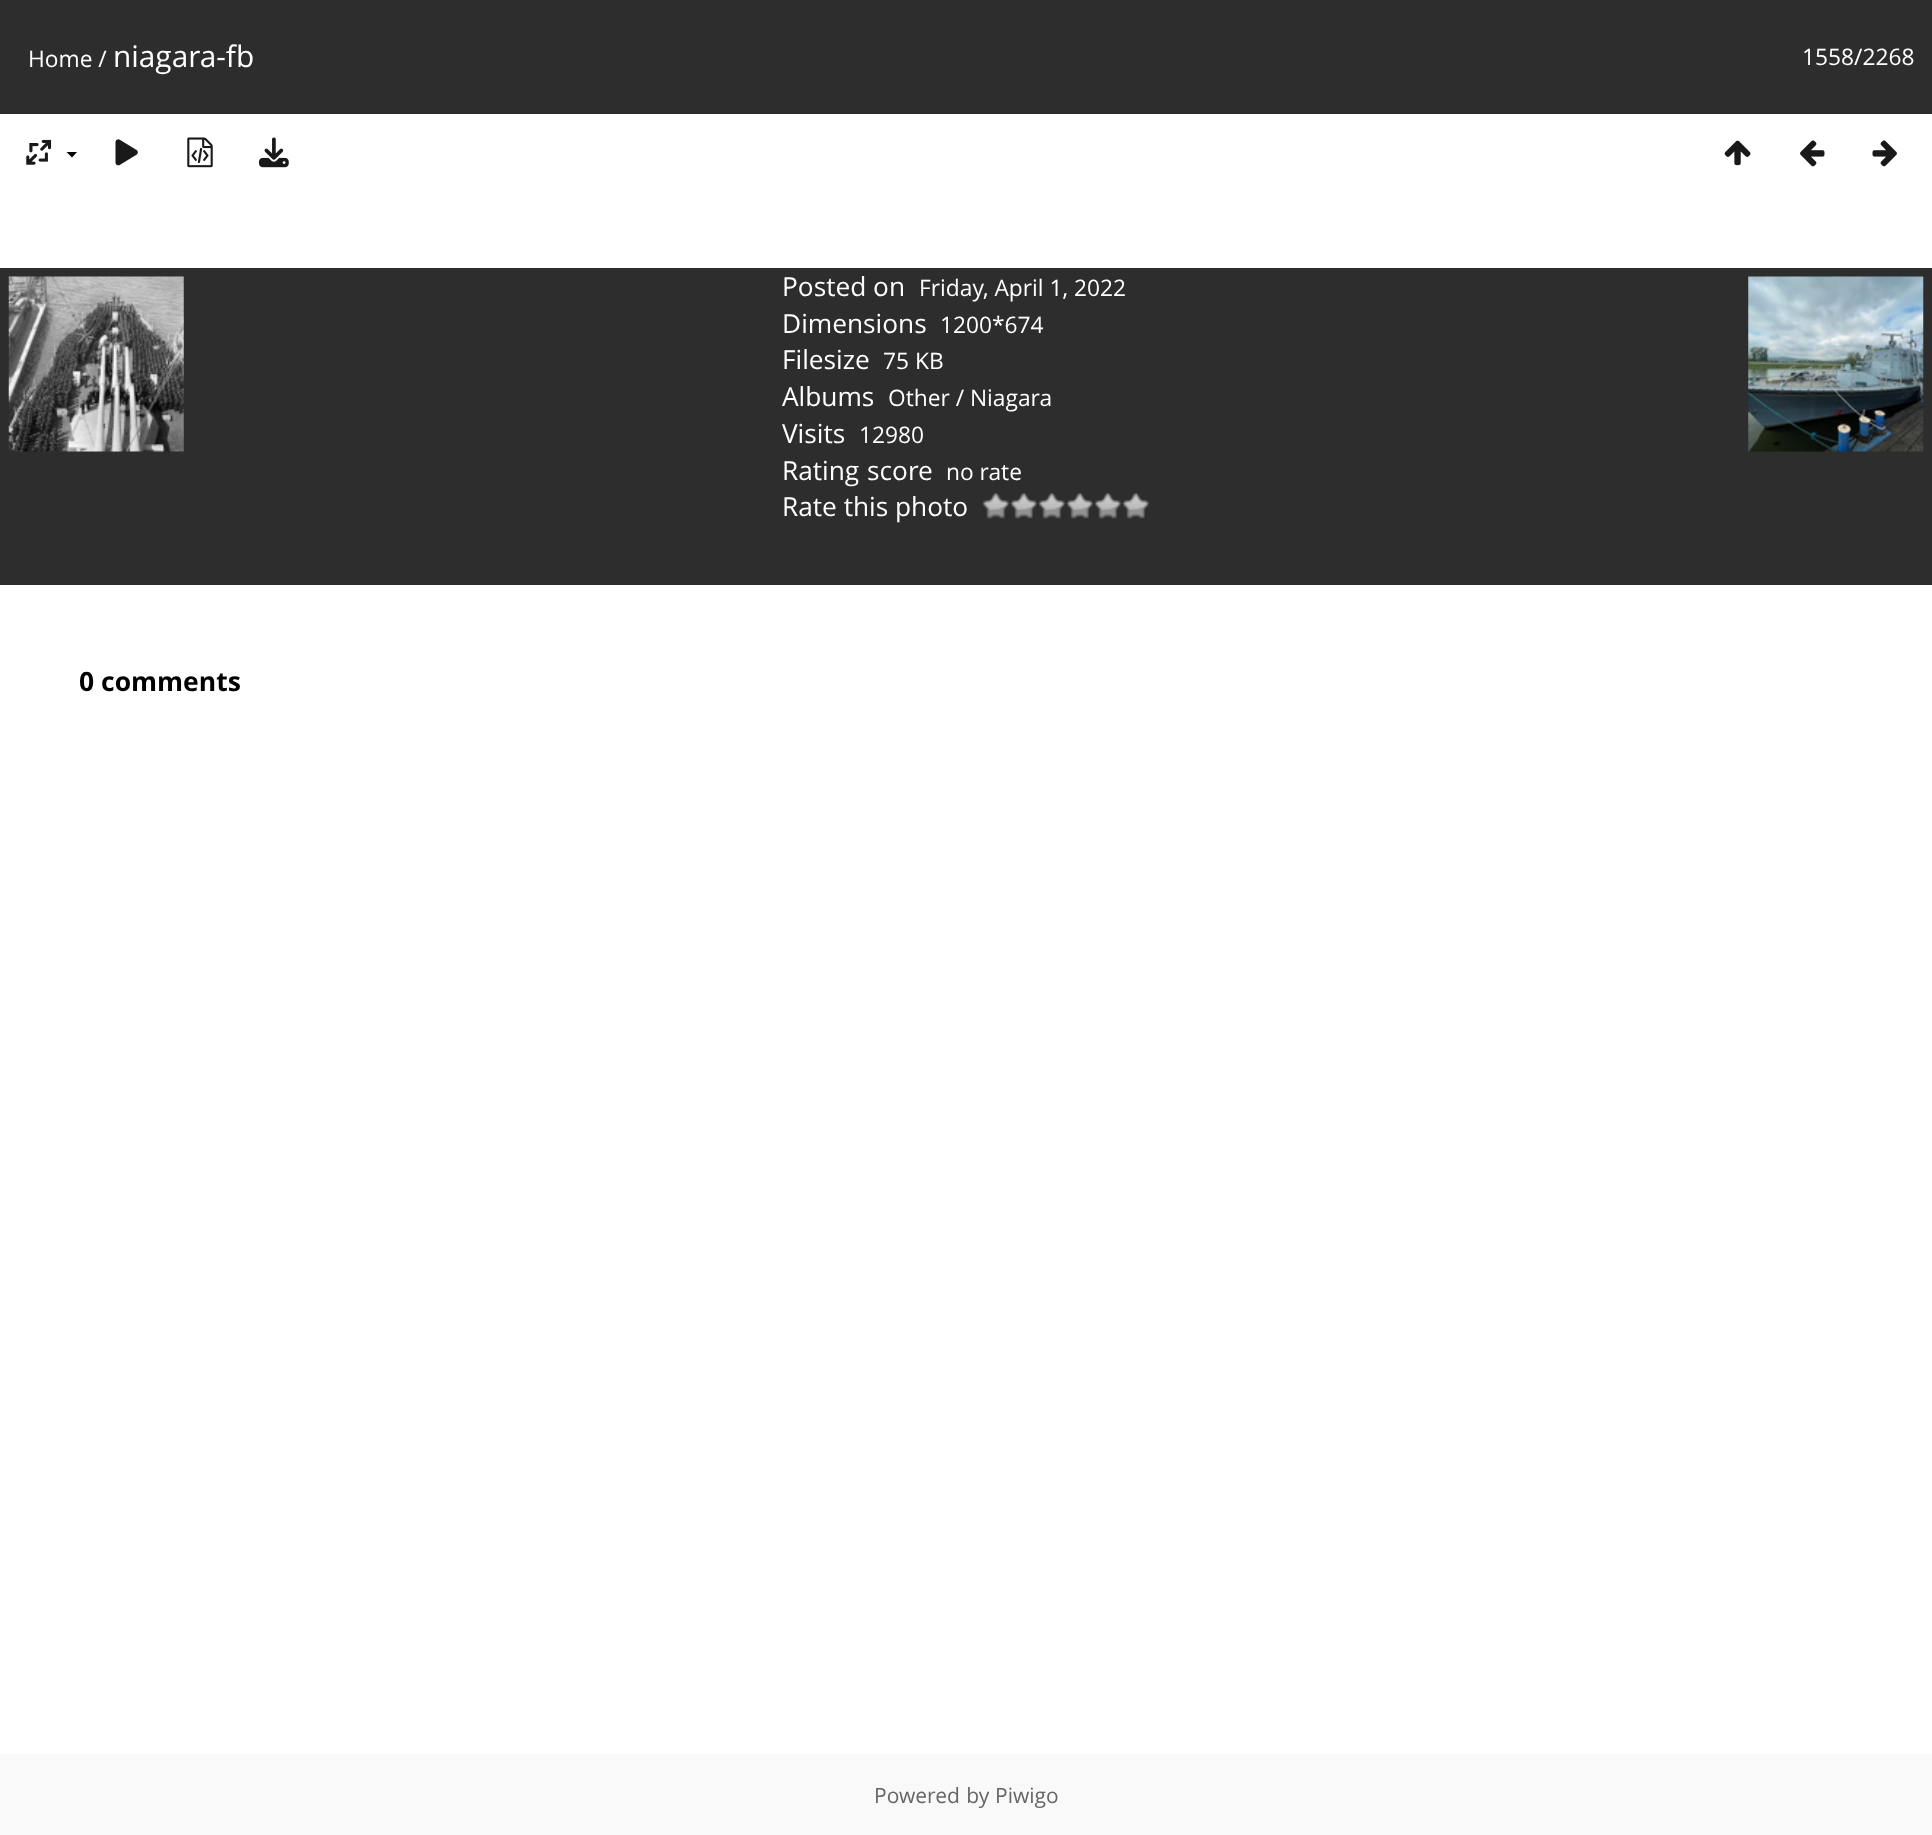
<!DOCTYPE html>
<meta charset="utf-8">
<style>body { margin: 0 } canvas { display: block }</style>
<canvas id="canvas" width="1932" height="1835"></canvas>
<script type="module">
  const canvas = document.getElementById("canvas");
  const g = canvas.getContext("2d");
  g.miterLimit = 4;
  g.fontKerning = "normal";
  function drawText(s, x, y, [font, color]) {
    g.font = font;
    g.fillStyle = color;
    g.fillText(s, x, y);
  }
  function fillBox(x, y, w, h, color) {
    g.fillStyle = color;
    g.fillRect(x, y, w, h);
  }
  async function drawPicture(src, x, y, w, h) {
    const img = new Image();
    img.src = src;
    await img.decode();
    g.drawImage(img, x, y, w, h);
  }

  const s1 = ["22.75px Open Sans", "#FFFFFF"];
  const s2 = ["29.75px Open Sans", "#FFFFFF"];
  const s3 = ["26.25px Open Sans", "#FFFFFF"];
  const s4 = ["bold 26.5px Open Sans", "#000000"];
  const s5 = ["21px Open Sans", "#666666"];

  fillBox(0, 0, 1932, 1835, "#FFFFFF");
  fillBox(0, 0, 1932, 114, "#2D2D2D");
  drawText("Home /", 28, 67, s1);
  drawText("niagara-fb", 113, 67, s2);
  drawText("1558/2268", 1802, 65, s1);
  await drawPicture("pic1.png", 26, 139, 26, 26);
  g.fillStyle = "#000000";
  g.beginPath();
  g.moveTo(66.5, 152);
  g.lineTo(77, 152);
  g.lineTo(72, 157.5);
  g.closePath();
  g.fill();
  await drawPicture("pic2.png", 115, 139, 23, 27);
  await drawPicture("pic3.png", 187, 137, 26, 31);
  await drawPicture("pic4.png", 259, 137, 30, 31);
  await drawPicture("pic5.png", 1724, 140, 27, 26);
  await drawPicture("pic6.png", 1800, 140, 25, 27);
  await drawPicture("pic7.png", 1872, 140, 25, 27);
  fillBox(0, 268, 1932, 317, "#2D2D2D");
  await drawPicture("pic8.png", 8, 276, 176, 176);
  await drawPicture("pic9.png", 1748, 276, 176, 176);
  drawText("Posted on", 782, 296, s3);
  drawText("Friday, April 1, 2022", 919, 296, s1);
  drawText("Dimensions", 782, 333, s3);
  drawText("1200*674", 940, 333, s1);
  drawText("Filesize", 782, 369, s3);
  drawText("75 KB", 883, 369, s1);
  drawText("Albums", 782, 406, s3);
  drawText("Other / Niagara", 888, 406, s1);
  drawText("Visits", 782, 443, s3);
  drawText("12980", 859, 443, s1);
  g.wordSpacing = "1px";
  drawText("Rating score", 782, 480, s3);
  g.wordSpacing = "0px";
  drawText("no rate", 946, 480, s1);
  drawText("Rate this photo", 782, 516, s3);
  await drawPicture("pic10.png", 982, 493, 28, 26);
  await drawPicture("pic11.png", 1010, 493, 28, 26);
  await drawPicture("pic10.png", 1038, 493, 28, 26);
  await drawPicture("pic12.png", 1066, 493, 28, 26);
  await drawPicture("pic12.png", 1094, 493, 28, 26);
  await drawPicture("pic10.png", 1122, 493, 28, 26);
  drawText("0 comments", 79, 691, s4);
  fillBox(0, 1754, 1932, 81, "#F9F9F9");
  g.wordSpacing = "1px";
  drawText("Powered by", 874, 1803, s5);
  g.wordSpacing = "0px";
  drawText("Piwigo", 995, 1803, s5);
</script>
